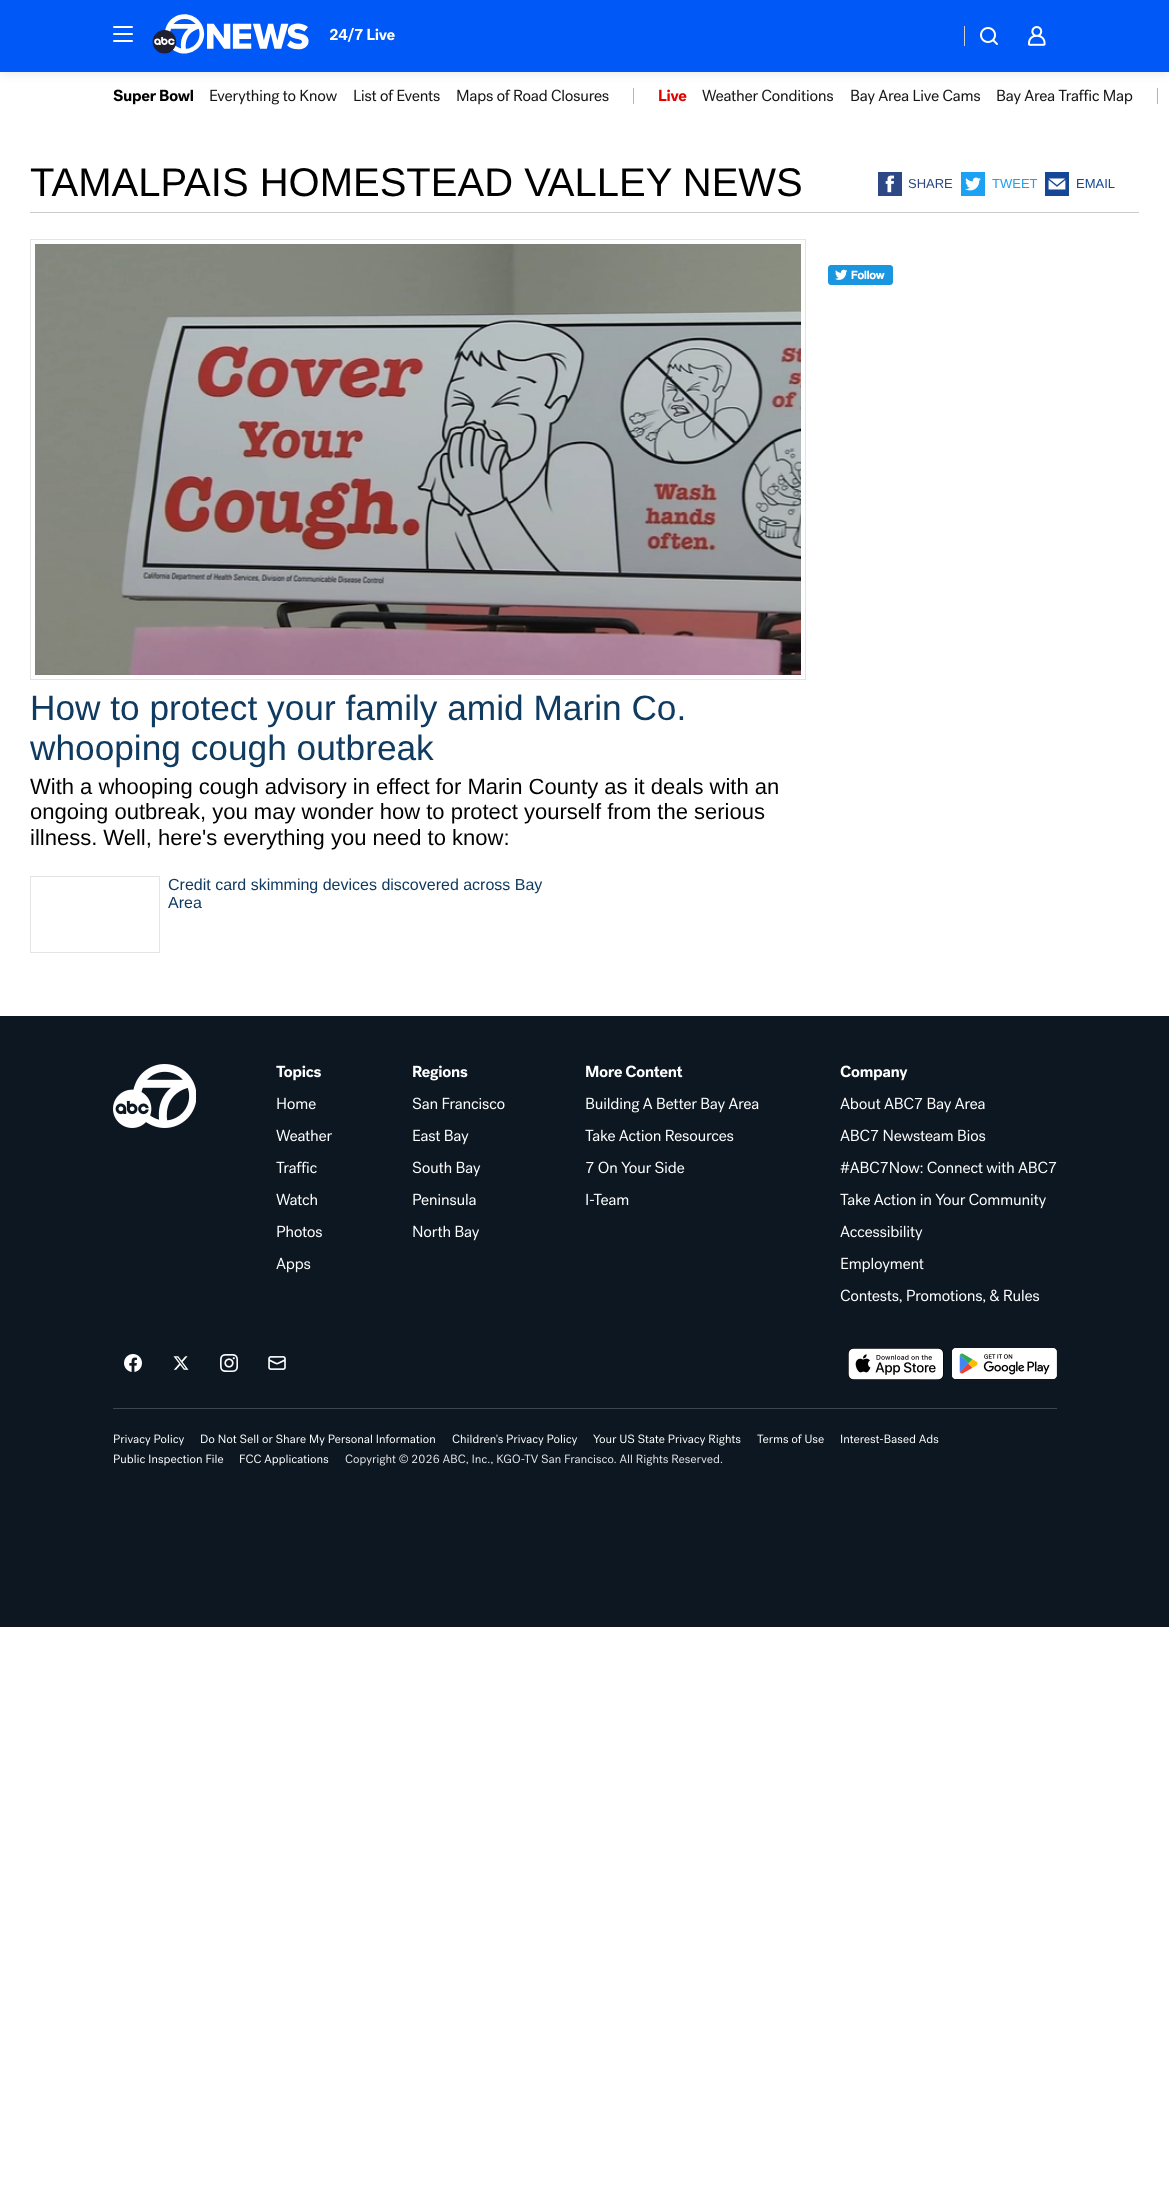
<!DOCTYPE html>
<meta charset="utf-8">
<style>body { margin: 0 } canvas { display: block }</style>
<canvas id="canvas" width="1169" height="2186"></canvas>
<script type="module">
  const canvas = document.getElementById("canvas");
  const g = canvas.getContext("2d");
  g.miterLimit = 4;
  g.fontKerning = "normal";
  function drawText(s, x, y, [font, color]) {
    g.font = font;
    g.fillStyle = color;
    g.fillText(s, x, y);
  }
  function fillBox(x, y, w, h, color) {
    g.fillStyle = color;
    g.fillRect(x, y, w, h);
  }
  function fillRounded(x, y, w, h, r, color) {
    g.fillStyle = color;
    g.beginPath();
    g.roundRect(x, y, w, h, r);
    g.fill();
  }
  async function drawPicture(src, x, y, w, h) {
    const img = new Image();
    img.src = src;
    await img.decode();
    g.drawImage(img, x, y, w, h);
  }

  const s1 = ["40px Liberation Sans", "#000000"];
  const s2 = ["13px Liberation Sans", "#2D4885"];
  const s3 = ["13px Liberation Sans", "#1DA1F2"];
  const s4 = ["13px Liberation Sans", "#144795"];
  const s5 = ["35.25px Liberation Sans", "#103B61"];
  const s6 = ["22px Liberation Sans", "#000000"];
  const s7 = ["16px Liberation Sans", "#103B61"];

  fillBox(0, 0, 1169, 2186, "#FFFFFF");
  await drawPicture("pic5.png", 113, 89, 80, 16);
  await drawPicture("pic6.png", 210, 89, 127, 16);
  await drawPicture("pic7.png", 354, 89, 86, 13);
  await drawPicture("pic8.png", 457, 89, 152, 16);
  fillBox(633, 88, 1, 16, "#B0B5BE");
  await drawPicture("pic9.png", 659, 89, 28, 13);
  await drawPicture("pic10.png", 702, 89, 131, 13);
  await drawPicture("pic11.png", 851, 89, 130, 16);
  await drawPicture("pic12.png", 997, 89, 136, 16);
  fillBox(1157, 88, 1, 16, "#B0B5BE");
  g.fillStyle = "rgba(0, 0, 0, 0.08)";
  g.filter = "blur(5px)";
  g.beginPath();
  g.rect(0, 2, 1169, 72);
  g.fill();
  g.filter = "none";
  fillBox(0, 0, 1169, 72, "#0058F6");
  fillRounded(113, 33, 20, 2, 1, "#FFFFFF");
  fillRounded(113, 26, 20, 2, 1, "#FFFFFF");
  fillRounded(113, 40, 20, 2, 1, "#FFFFFF");
  await drawPicture("pic1.png", 152, 14, 157, 40);
  await drawPicture("pic2.png", 329, 27, 66, 15);
  fillBox(964, 26, 1, 20, "#CECFCF");
  await drawPicture("pic3.png", 980, 27, 18, 18);
  await drawPicture("pic4.png", 1028, 26, 18, 20);
  fillBox(30, 212, 1109, 1, "#CCCCCC");
  drawText("TAMALPAIS HOMESTEAD VALLEY NEWS", 30, 196, s1);
  fillBox(878, 172, 24, 24, "#2D4885");
  await drawPicture("pic13.png", 885, 175, 9, 18);
  drawText("SHARE", 908, 188, s2);
  fillBox(961, 172, 24, 24, "#1DA1F2");
  await drawPicture("pic14.png", 965, 177, 16, 14);
  drawText("TWEET", 992, 188, s3);
  fillBox(1045, 172, 24, 24, "#144795");
  await drawPicture("pic15.png", 1048, 178, 18, 12);
  drawText("EMAIL", 1076, 188, s4);
  await drawPicture("pic16.png", 828, 265, 65, 20);
  g.strokeStyle = "#E4E4E4";
  g.strokeRect(30.5, 239.5, 775, 440);
  await drawPicture("pic17.png", 35, 244, 766, 431);
  drawText("How to protect your family amid Marin Co.", 30, 720, s5);
  drawText("whooping cough outbreak", 30, 760, s5);
  drawText("With a whooping cough advisory in effect for Marin County as it deals with an", 30, 794, s6);
  drawText("ongoing outbreak, you may wonder how to protect yourself from the serious", 30, 819, s6);
  drawText("illness. Well, here's everything you need to know:", 30, 845, s6);
  g.strokeRect(30.5, 876.5, 129, 76);
  drawText("Credit card skimming devices discovered across Bay", 168, 890, s7);
  drawText("Area", 168, 908, s7);
  fillBox(0, 1016, 1169, 611, "#0D1721");
  await drawPicture("pic18.png", 113, 1064, 83, 64);
  await drawPicture("pic19.png", 276, 1065, 45, 16);
  await drawPicture("pic20.png", 277, 1097, 39, 13);
  await drawPicture("pic21.png", 276, 1129, 56, 13);
  await drawPicture("pic22.png", 276, 1161, 41, 13);
  await drawPicture("pic23.png", 276, 1193, 41, 13);
  await drawPicture("pic24.png", 277, 1225, 45, 13);
  await drawPicture("pic25.png", 276, 1257, 35, 16);
  await drawPicture("pic26.png", 413, 1065, 55, 16);
  await drawPicture("pic27.png", 412, 1097, 93, 13);
  await drawPicture("pic28.png", 413, 1129, 56, 16);
  await drawPicture("pic29.png", 412, 1161, 69, 16);
  await drawPicture("pic30.png", 413, 1193, 63, 13);
  await drawPicture("pic31.png", 413, 1225, 66, 16);
  await drawPicture("pic32.png", 586, 1065, 97, 13);
  await drawPicture("pic33.png", 586, 1097, 173, 16);
  await drawPicture("pic34.png", 585, 1129, 149, 13);
  await drawPicture("pic35.png", 586, 1161, 99, 13);
  await drawPicture("pic36.png", 586, 1193, 43, 13);
  await drawPicture("pic37.png", 840, 1065, 68, 16);
  await drawPicture("pic38.png", 840, 1097, 145, 16);
  await drawPicture("pic39.png", 840, 1129, 146, 13);
  await drawPicture("pic40.png", 840, 1161, 217, 13);
  await drawPicture("pic41.png", 840, 1193, 206, 16);
  await drawPicture("pic42.png", 840, 1225, 83, 16);
  await drawPicture("pic43.png", 841, 1257, 83, 16);
  await drawPicture("pic44.png", 840, 1289, 200, 14);
  await drawPicture("pic45.png", 124, 1354, 18, 18);
  await drawPicture("pic46.png", 173, 1356, 16, 14);
  await drawPicture("pic47.png", 220, 1354, 18, 18);
  await drawPicture("pic48.png", 268, 1356, 18, 14);
  await drawPicture("pic49.png", 848, 1348, 96, 32);
  await drawPicture("pic50.png", 952, 1348, 105, 31);
  fillBox(113, 1408, 944, 1, "#3D454D");
  await drawPicture("pic51.png", 114, 1434, 70, 12);
  await drawPicture("pic52.png", 201, 1434, 234, 12);
  await drawPicture("pic53.png", 452, 1434, 126, 12);
  await drawPicture("pic54.png", 593, 1434, 148, 12);
  await drawPicture("pic55.png", 757, 1434, 67, 10);
  await drawPicture("pic56.png", 841, 1434, 98, 10);
  await drawPicture("pic57.png", 114, 1454, 110, 12);
  await drawPicture("pic58.png", 240, 1454, 89, 12);
  await drawPicture("pic59.png", 345, 1454, 63, 12);
  await drawPicture("pic60.png", 412, 1454, 311, 12);
</script>
